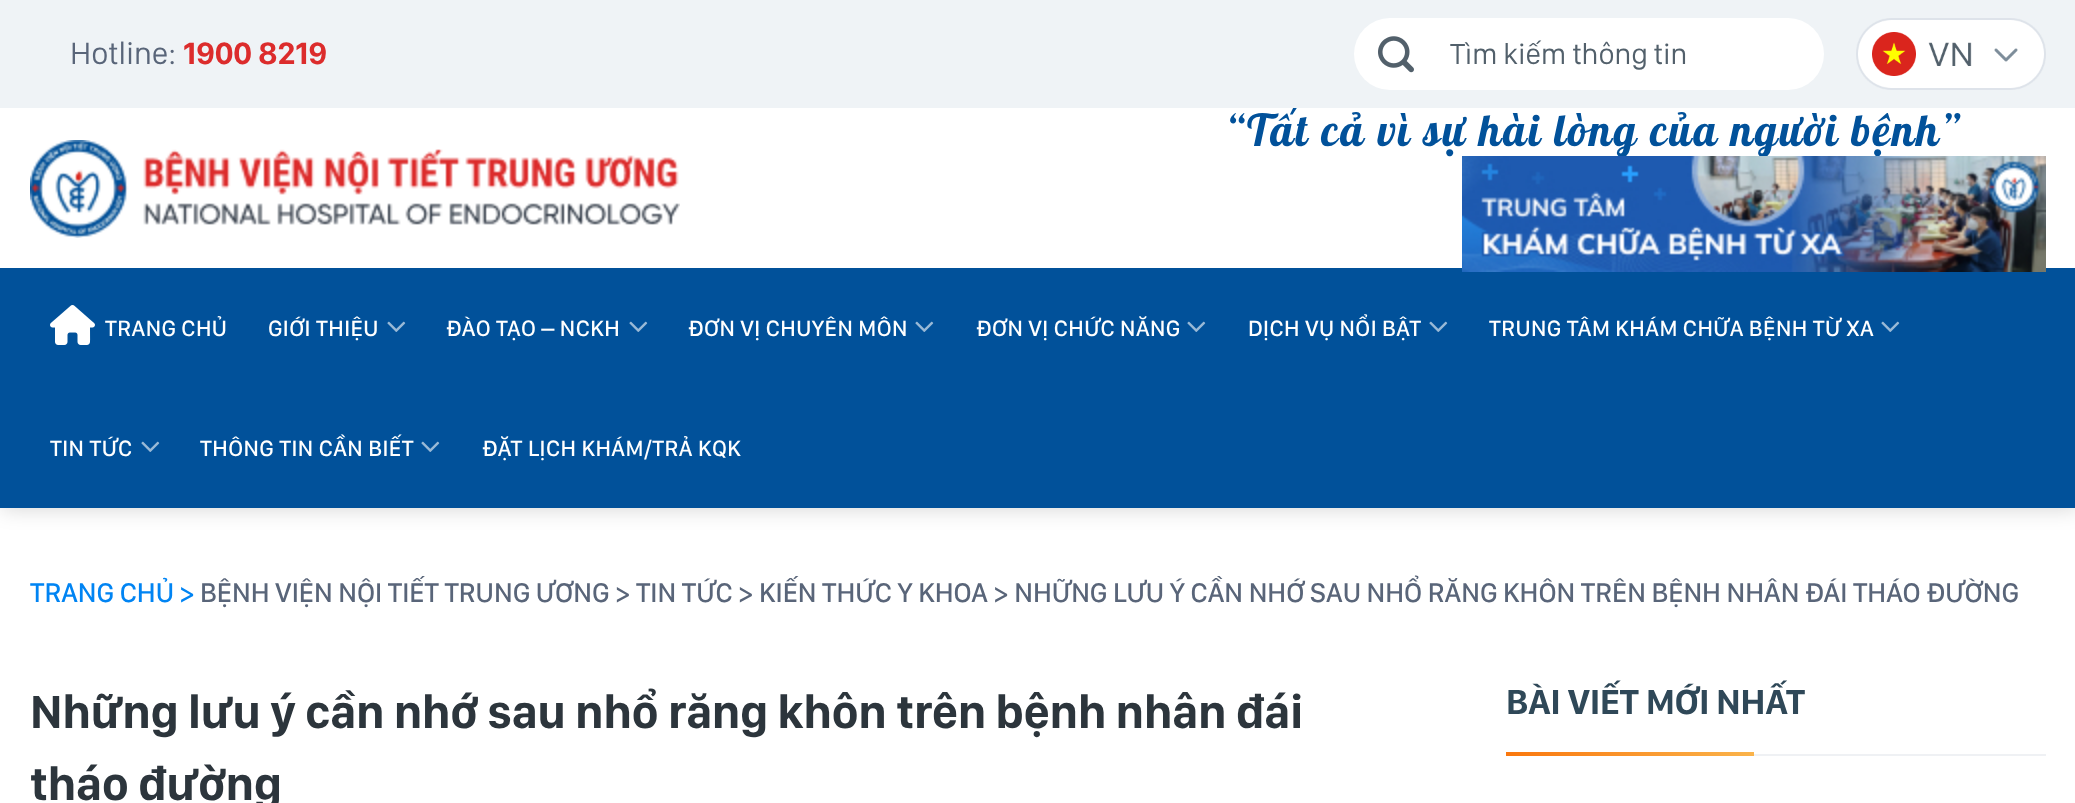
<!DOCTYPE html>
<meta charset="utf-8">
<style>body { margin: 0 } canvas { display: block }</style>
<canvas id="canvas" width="2075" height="803"></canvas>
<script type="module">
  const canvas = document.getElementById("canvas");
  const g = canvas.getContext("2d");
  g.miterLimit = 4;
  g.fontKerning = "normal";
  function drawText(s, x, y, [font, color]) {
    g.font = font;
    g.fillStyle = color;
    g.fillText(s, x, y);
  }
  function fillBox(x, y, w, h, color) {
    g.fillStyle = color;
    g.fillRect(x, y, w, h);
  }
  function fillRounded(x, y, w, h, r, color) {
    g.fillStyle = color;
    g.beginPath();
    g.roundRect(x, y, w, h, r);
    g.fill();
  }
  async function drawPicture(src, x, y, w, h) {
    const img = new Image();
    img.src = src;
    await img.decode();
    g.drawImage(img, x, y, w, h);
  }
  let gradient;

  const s1 = ["44px Pattaya", "#01519A"];
  const s2 = ["32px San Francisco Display", "#596579"];
  const s3 = ["bold 32px San Francisco Display", "#DC2C2C"];
  const s4 = ["30px San Francisco Display", "#52606B"];
  const s5 = ["500 23px San Francisco Display", "#FFFFFF"];
  const s6 = ["500 28px San Francisco Display", "#0084F3"];
  const s7 = ["500 28px San Francisco Display", "#596579"];
  const s8 = ["bold 48px San Francisco Display", "#2C353C"];
  const s9 = ["bold 36px San Francisco Display", "#2F4858"];

  fillBox(0, 0, 2075, 803, "#FFFFFF");
  g.fillStyle = "rgba(0, 0, 0, 0.15)";
  g.filter = "blur(10px)";
  g.beginPath();
  g.rect(2, 2, 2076, 508);
  g.fill();
  g.filter = "none";
  fillBox(0, 108, 2075, 160, "#FFFFFF");
  g.letterSpacing = "2.2px";
  drawText("“Tất cả vì sự hài lòng của người bệnh”", 1226, 146, s1);
  fillBox(0, 0, 2075, 108, "#EFF3F6");
  g.letterSpacing = "0px";
  drawText("Hotline:", 70, 64, s2);
  drawText("1900 8219", 183, 64, s3);
  fillRounded(1354, 18, 470, 72, 36, "#FFFFFF");
  await drawPicture("pic1.png", 1378, 36, 36, 37);
  drawText("Tìm kiếm thông tin", 1450, 64, s4);
  await drawPicture("pic2.png", 1856, 18, 190, 72);
  fillBox(0, 268, 2075, 240, "#01519A");
  await drawPicture("pic3.png", 1462, 156, 584, 116);
  await drawPicture("pic4.png", 30, 140, 650, 98);
  await drawPicture("pic5.png", 50, 305, 45, 40);
  g.letterSpacing = "0.45px";
  drawText("TRANG CHỦ", 105, 336, s5);
  drawText("GIỚI THIỆU", 268, 336, s5);
  await drawPicture("pic6.png", 387, 321, 19, 11);
  drawText("ĐÀO TẠO – NCKH", 446, 336, s5);
  await drawPicture("pic6.png", 629, 321, 19, 11);
  drawText("ĐƠN VỊ CHUYÊN MÔN", 688, 336, s5);
  await drawPicture("pic6.png", 915, 321, 19, 11);
  drawText("ĐƠN VỊ CHỨC NĂNG", 976, 336, s5);
  await drawPicture("pic6.png", 1187, 321, 19, 11);
  drawText("DỊCH VỤ NỔI BẬT", 1248, 336, s5);
  await drawPicture("pic6.png", 1429, 321, 19, 11);
  drawText("TRUNG TÂM KHÁM CHỮA BỆNH TỪ XA", 1489, 336, s5);
  await drawPicture("pic6.png", 1881, 321, 19, 11);
  drawText("TIN TỨC", 50, 456, s5);
  await drawPicture("pic6.png", 141, 441, 19, 11);
  drawText("THÔNG TIN CẦN BIẾT", 200, 456, s5);
  await drawPicture("pic6.png", 421, 441, 19, 11);
  drawText("ĐẶT LỊCH KHÁM/TRẢ KQK", 482, 456, s5);
  g.letterSpacing = "0px";
  drawText("TRANG CHỦ >", 30, 602, s6);
  drawText("BỆNH VIỆN NỘI TIẾT TRUNG ƯƠNG > TIN TỨC > KIẾN THỨC Y KHOA > NHỮNG LƯU Ý CẦN NHỚ SAU NHỔ RĂNG KHÔN TRÊN BỆNH NHÂN ĐÁI THÁO ĐƯỜNG", 200, 602, s7);
  drawText("Những lưu ý cần nhớ sau nhổ răng khôn trên bệnh nhân đái", 30, 728, s8);
  drawText("tháo đường", 30, 800, s8);
  fillBox(1754, 754, 292, 2, "#EFF1F4");
  drawText("BÀI VIẾT MỚI NHẤT", 1506, 714, s9);
  gradient = g.createLinearGradient(1567, 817, 1693, 691);
  gradient.addColorStop(0, "#FA770D");
  gradient.addColorStop(1, "#FAB44B");
  g.fillStyle = gradient;
  g.fillRect(1506, 752, 248, 4);
</script>
